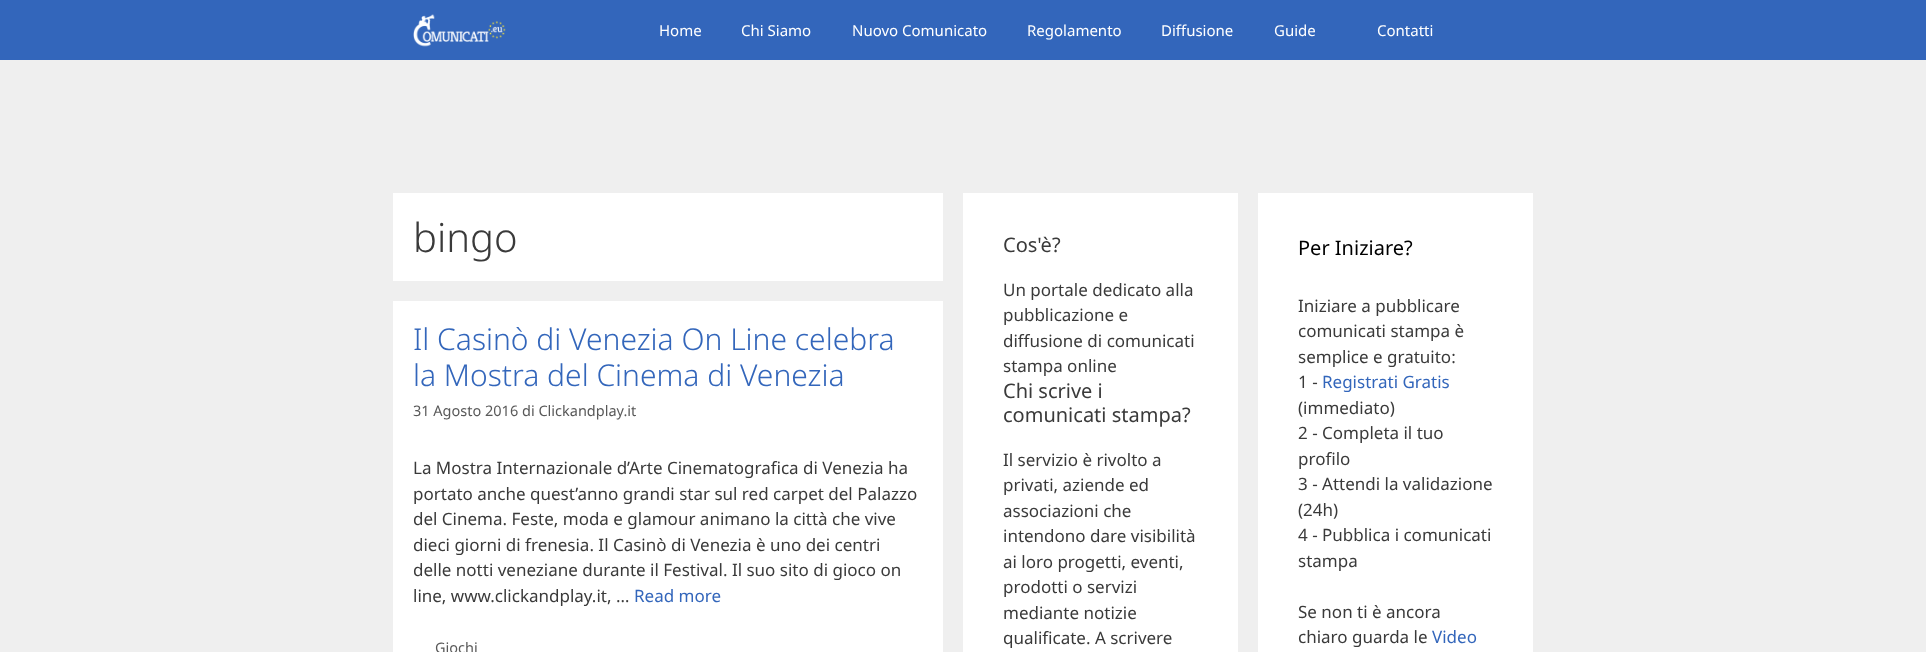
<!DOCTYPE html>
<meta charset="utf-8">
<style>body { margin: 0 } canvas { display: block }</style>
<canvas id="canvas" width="1926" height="652"></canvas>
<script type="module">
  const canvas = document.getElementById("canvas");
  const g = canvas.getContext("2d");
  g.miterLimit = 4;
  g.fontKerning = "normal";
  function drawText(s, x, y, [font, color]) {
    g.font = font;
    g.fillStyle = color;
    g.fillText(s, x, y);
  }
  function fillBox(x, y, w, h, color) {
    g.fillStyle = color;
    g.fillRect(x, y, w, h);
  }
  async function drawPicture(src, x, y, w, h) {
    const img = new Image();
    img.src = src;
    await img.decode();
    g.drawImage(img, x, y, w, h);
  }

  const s1 = ["15px Noto Sans", "#FFFFFF"];
  const s2 = ["300 40px Noto Sans", "#3A3A3A"];
  const s3 = ["300 30px Noto Sans", "#3366BB"];
  const s4 = ["14.5px Noto Sans", "#595959"];
  const s5 = ["17px Noto Sans", "#3A3A3A"];
  const s6 = ["17px Noto Sans", "#3366BB"];
  const s7 = ["20px Noto Sans", "#3A3A3A"];
  const s8 = ["20px Noto Sans", "#000000"];

  fillBox(0, 0, 1926, 652, "#EFEFEF");
  fillBox(0, 0, 1926, 60, "#3366BB");
  await drawPicture("pic1.png", 413, 14, 93, 33);
  drawText("Home", 659, 36, s1);
  drawText("Chi Siamo", 741, 36, s1);
  drawText("Nuovo Comunicato", 852, 36, s1);
  drawText("Regolamento", 1027, 36, s1);
  drawText("Diffusione", 1161, 36, s1);
  drawText("Guide", 1274, 36, s1);
  drawText("Contatti", 1377, 36, s1);
  fillBox(393, 193, 550, 88, "#FFFFFF");
  drawText("bingo", 413, 252, s2);
  fillBox(393, 301, 550, 351, "#FFFFFF");
  drawText("Il Casinò di Venezia On Line celebra", 413, 350, s3);
  drawText("la Mostra del Cinema di Venezia", 413, 386, s3);
  drawText("31 Agosto 2016 di Clickandplay.it", 413, 416, s4);
  drawText("La Mostra Internazionale d’Arte Cinematografica di Venezia ha", 413, 474, s5);
  drawText("portato anche quest’anno grandi star sul red carpet del Palazzo", 413, 500, s5);
  drawText("del Cinema. Feste, moda e glamour animano la città che vive", 413, 525, s5);
  drawText("dieci giorni di frenesia. Il Casinò di Venezia è uno dei centri", 413, 551, s5);
  drawText("delle notti veneziane durante il Festival. Il suo sito di gioco on", 413, 576, s5);
  drawText("line, www.clickandplay.it, …", 413, 602, s5);
  drawText("Read more", 634, 602, s6);
  drawText("Giochi", 435, 653, s4);
  fillBox(963, 193, 275, 459, "#FFFFFF");
  drawText("Cos'è?", 1003, 252, s7);
  drawText("Un portale dedicato alla", 1003, 296, s5);
  drawText("pubblicazione e", 1003, 321, s5);
  drawText("diffusione di comunicati", 1003, 347, s5);
  drawText("stampa online", 1003, 372, s5);
  drawText("Chi scrive i", 1003, 398, s7);
  drawText("comunicati stampa?", 1003, 422, s7);
  drawText("Il servizio è rivolto a", 1003, 466, s5);
  drawText("privati, aziende ed", 1003, 491, s5);
  drawText("associazioni che", 1003, 517, s5);
  drawText("intendono dare visibilità", 1003, 542, s5);
  drawText("ai loro progetti, eventi,", 1003, 568, s5);
  drawText("prodotti o servizi", 1003, 593, s5);
  drawText("mediante notizie", 1003, 619, s5);
  drawText("qualificate. A scrivere", 1003, 644, s5);
  fillBox(1258, 193, 275, 459, "#FFFFFF");
  drawText("Per Iniziare?", 1298, 255, s8);
  drawText("Iniziare a pubblicare", 1298, 312, s5);
  drawText("comunicati stampa è", 1298, 337, s5);
  drawText("semplice e gratuito:", 1298, 363, s5);
  drawText("1 -", 1298, 388, s5);
  drawText("Registrati Gratis", 1322, 388, s6);
  drawText("(immediato)", 1298, 414, s5);
  drawText("2 - Completa il tuo", 1298, 439, s5);
  drawText("profilo", 1298, 465, s5);
  drawText("3 - Attendi la validazione", 1298, 490, s5);
  drawText("(24h)", 1298, 516, s5);
  drawText("4 - Pubblica i comunicati", 1298, 541, s5);
  drawText("stampa", 1298, 567, s5);
  drawText("Se non ti è ancora", 1298, 618, s5);
  drawText("chiaro guarda le", 1298, 643, s5);
  drawText("Video", 1432, 643, s6);
</script>
